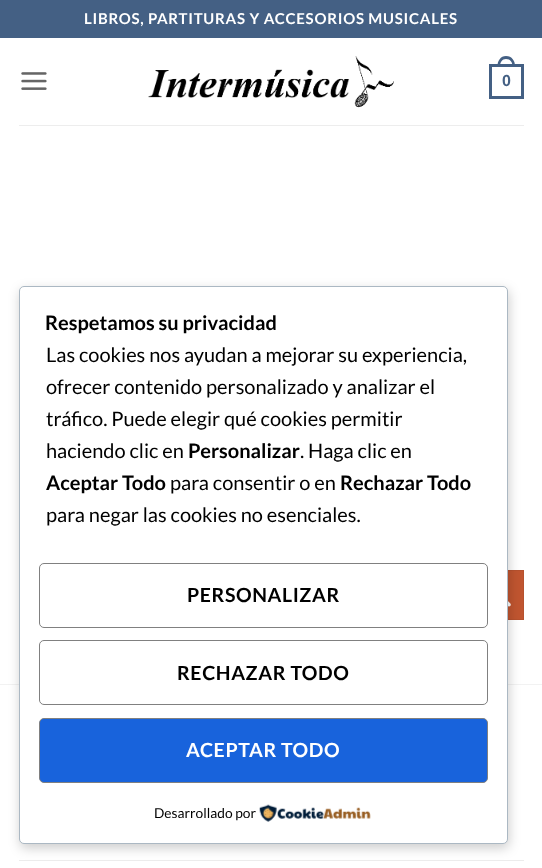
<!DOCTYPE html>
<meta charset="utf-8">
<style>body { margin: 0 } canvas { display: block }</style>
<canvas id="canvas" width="542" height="868"></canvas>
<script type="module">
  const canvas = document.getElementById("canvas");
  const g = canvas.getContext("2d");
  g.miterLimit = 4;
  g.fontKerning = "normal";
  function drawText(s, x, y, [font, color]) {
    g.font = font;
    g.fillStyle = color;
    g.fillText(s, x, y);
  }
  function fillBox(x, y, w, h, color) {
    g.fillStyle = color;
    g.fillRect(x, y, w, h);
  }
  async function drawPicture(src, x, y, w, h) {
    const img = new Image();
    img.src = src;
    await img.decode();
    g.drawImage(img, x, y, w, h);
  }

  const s1 = ["bold 15px Lato", "#FFFFFF"];
  const s2 = ["bold 16px Liberation Sans", "#446084"];
  const s3 = ["bold 20px Lato", "#000000"];
  const s4 = ["20px Lato", "#000000"];
  const s5 = ["bold 19.5px Lato", "#000000"];
  const s6 = ["bold 19.5px Lato", "#FFFFFF"];
  const s7 = ["13.75px Lato", "#000000"];

  fillBox(0, 0, 542, 868, "#FFFFFF");
  fillBox(0, 0, 542, 38, "#446084");
  g.letterSpacing = "0.75px";
  drawText("LIBROS, PARTITURAS Y ACCESORIOS MUSICALES", 84, 24, s1);
  await drawPicture("pic1.png", 21, 72, 26, 18);
  await drawPicture("pic2.png", 148, 56, 246, 52);
  g.strokeStyle = "#446084";
  g.lineWidth = 3;
  g.strokeRect(490.5, 65.5, 32, 32);
  g.fillStyle = "#446084";
  g.beginPath();
  g.moveTo(506, 56);
  g.bezierCurveTo(512, 56, 515, 61, 515, 66);
  g.lineTo(497.5, 66);
  g.bezierCurveTo(497.5, 61, 500.5, 56, 506, 56);
  g.closePath();
  g.moveTo(506, 59);
  g.bezierCurveTo(510.5, 59, 512.5, 62.5, 512.5, 66);
  g.lineTo(500, 66);
  g.bezierCurveTo(500, 62.5, 502, 59, 506, 59);
  g.closePath();
  g.fill("evenodd");
  g.letterSpacing = "0px";
  drawText("0", 502, 86, s2);
  fillBox(19, 125, 505, 1, "#EDEDED");
  fillBox(508, 571, 15, 48, "#C05530");
  g.strokeStyle = "#B6512E";
  g.lineWidth = 1;
  g.strokeRect(474.5, 570.5, 49, 49);
  await drawPicture("pic3.png", 508, 601, 3, 6);
  fillBox(0, 684, 542, 1, "#F2F2F2");
  fillBox(19, 860, 505, 1, "#ECECEC");
  g.fillStyle = "rgba(0, 0, 0, 0.2)";
  g.filter = "blur(6px)";
  g.beginPath();
  g.roundRect(20, 290, 489, 558, 5);
  g.fill();
  g.filter = "none";
  g.fillStyle = "#FFFFFF";
  g.beginPath();
  g.roundRect(19.5, 286.5, 488, 557, 4.5);
  g.fill();
  g.strokeStyle = "#ABB8C3";
  g.stroke();
  drawText("Respetamos su privacidad", 45, 330, s3);
  drawText("Las cookies nos ayudan a mejorar su experiencia,", 46, 362, s4);
  drawText("ofrecer contenido personalizado y analizar el", 46, 394, s4);
  drawText("tráfico. Puede elegir qué cookies permitir", 46, 426, s4);
  drawText("haciendo clic en", 46, 458, s4);
  drawText("Personalizar", 188, 458, s3);
  drawText(". Haga clic en", 300, 458, s4);
  drawText("Aceptar Todo", 46, 490, s3);
  drawText("para consentir o en", 170, 490, s4);
  drawText("Rechazar Todo", 340, 490, s3);
  drawText("para negar las cookies no esenciales.", 46, 522, s4);
  g.beginPath();
  g.roundRect(39.5, 563.5, 448, 64, 4.5);
  g.strokeStyle = "#808080";
  g.stroke();
  g.letterSpacing = "0.6px";
  drawText("PERSONALIZAR", 187, 602, s5);
  g.beginPath();
  g.roundRect(39.5, 640.5, 448, 64, 4.5);
  g.stroke();
  drawText("RECHAZAR TODO", 177, 680, s5);
  g.fillStyle = "#1863DC";
  g.beginPath();
  g.roundRect(39.5, 718.5, 448, 64, 4.5);
  g.fill();
  g.stroke();
  drawText("ACEPTAR TODO", 186, 757, s6);
  g.letterSpacing = "0px";
  drawText("Desarrollado por", 154, 818, s7);
  await drawPicture("pic4.png", 259, 804, 112, 18);
</script>
